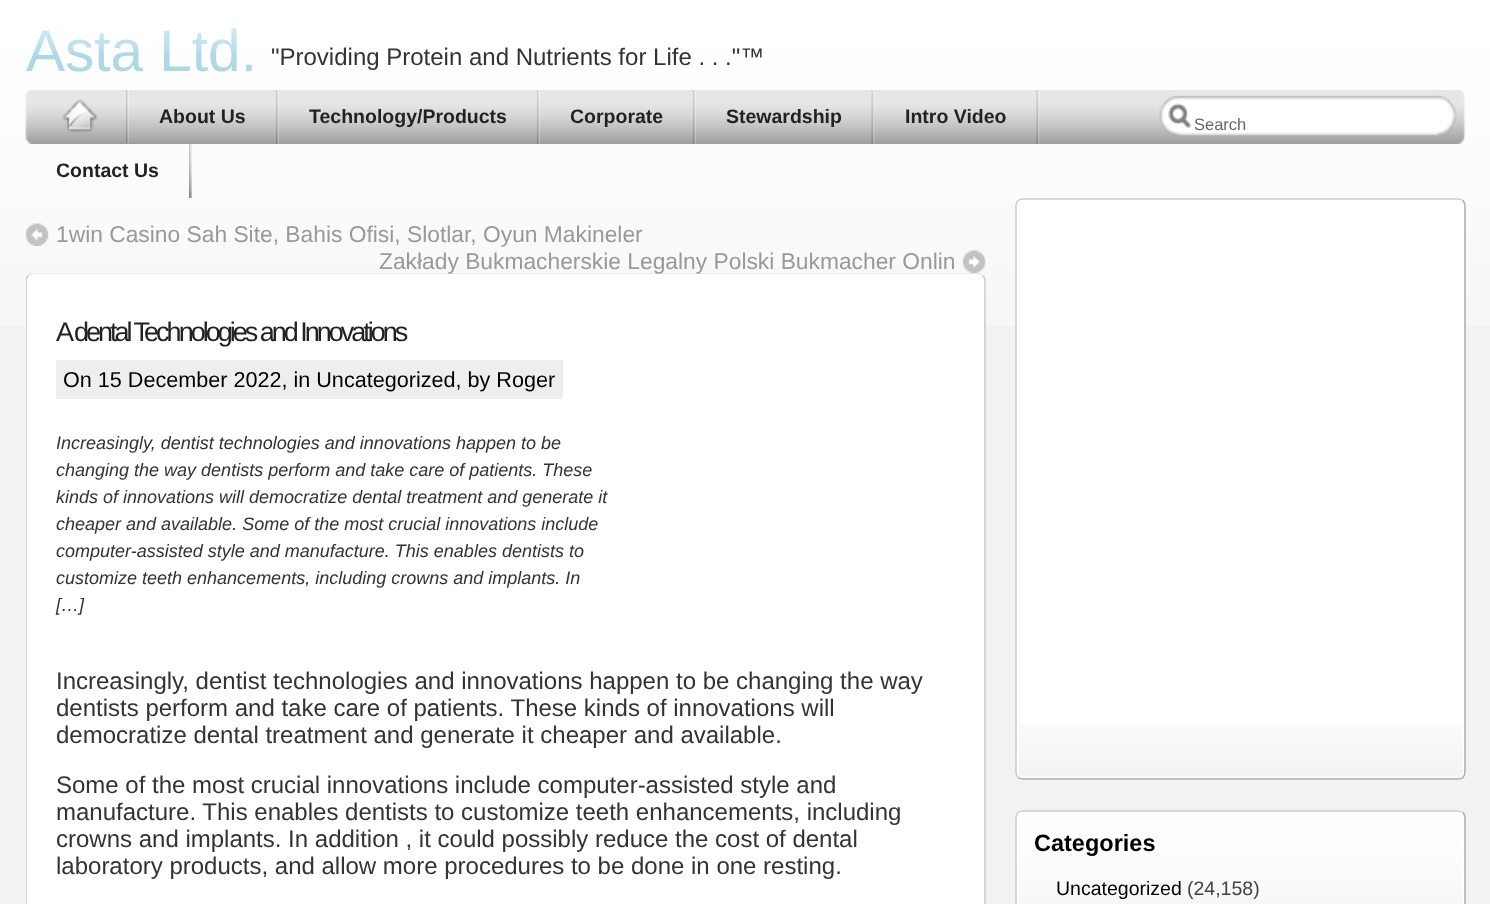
<!DOCTYPE html>
<meta charset="utf-8">
<style>body { margin: 0 } canvas { display: block }</style>
<canvas id="canvas" width="1490" height="904"></canvas>
<script type="module">
  const canvas = document.getElementById("canvas");
  const g = canvas.getContext("2d");
  g.miterLimit = 4;
  g.fontKerning = "normal";
  function drawText(s, x, y, [font, color]) {
    g.font = font;
    g.fillStyle = color;
    g.fillText(s, x, y);
  }
  function fillBox(x, y, w, h, color) {
    g.fillStyle = color;
    g.fillRect(x, y, w, h);
  }
  function fillRounded(x, y, w, h, r, color) {
    g.fillStyle = color;
    g.beginPath();
    g.roundRect(x, y, w, h, r);
    g.fill();
  }
  async function drawPicture(src, x, y, w, h) {
    const img = new Image();
    img.src = src;
    await img.decode();
    g.drawImage(img, x, y, w, h);
  }

  const s1 = ["58.5px Liberation Sans", "#ADD8E6"];
  const s2 = ["24px Liberation Sans", "#333333"];
  const s3 = ["bold 19.5px Liberation Sans", "#222222"];
  const s4 = ["16.5px Liberation Sans", "#666666"];
  const s5 = ["22.8px Liberation Sans", "#999999"];
  const s6 = ["27px Liberation Sans", "#222222"];
  const s7 = ["21.6px Liberation Sans", "#000000"];
  const s8 = ["italic 18px Liberation Sans", "#333333"];
  const s9 = ["bold 23.5px Liberation Sans", "#000000"];
  const s10 = ["19.5px Liberation Sans", "#000000"];
  const s11 = ["19.5px Liberation Sans", "#444444"];

  fillBox(0, 0, 1490, 904, "#F2F2F2");
  await drawPicture("pic1.png", 0, 0, 1490, 326);
  drawText("Asta Ltd.", 26, 71, s1);
  await drawPicture("pic2.png", 33, 28, 204, 25);
  drawText("\"Providing Protein and Nutrients for Life . . .\"™", 271, 65, s2);
  await drawPicture("pic3.png", 25, 90, 1441, 54);
  await drawPicture("pic4.png", 126, 90, 3, 53);
  await drawPicture("pic5.png", 62, 99, 36, 34);
  await drawPicture("pic6.png", 276, 90, 3, 54);
  drawText("About Us", 159, 123, s3);
  await drawPicture("pic7.png", 537, 90, 3, 54);
  drawText("Technology/Products", 309, 123, s3);
  await drawPicture("pic7.png", 693, 90, 3, 54);
  drawText("Corporate", 570, 123, s3);
  await drawPicture("pic8.png", 871, 90, 4, 54);
  drawText("Stewardship", 726, 123, s3);
  await drawPicture("pic8.png", 1036, 90, 4, 54);
  drawText("Intro Video", 905, 123, s3);
  await drawPicture("pic7.png", 189, 144, 3, 54);
  drawText("Contact Us", 56, 177, s3);
  await drawPicture("pic9.png", 1159, 95, 35, 41);
  await drawPicture("pic10.png", 1194, 95, 245, 41);
  drawText("Search", 1194, 130, s4);
  await drawPicture("pic11.png", 1437, 95, 20, 40);
  await drawPicture("pic12.png", 25, 223, 24, 23);
  drawText("1win Casino Sah Site, Bahis Ofisi, Slotlar, Oyun Makineler", 56, 242, s5);
  await drawPicture("pic13.png", 962, 250, 24, 23);
  g.beginPath();
  g.moveTo(28, 275.5);
  g.bezierCurveTo(29.5, 274.5, 31, 274, 33, 274);
  g.lineTo(978, 274);
  g.bezierCurveTo(980, 274, 981.5, 274.5, 983, 275.5);
  g.strokeStyle = "#E4E4E4";
  g.lineWidth = 1.5;
  g.stroke();
  drawText("Zakłady Bukmacherskie Legalny Polski Bukmacher Onlin", 379, 269, s5);
  g.beginPath();
  g.moveTo(983, 275.5);
  g.bezierCurveTo(984, 277, 985, 278.5, 985, 280.5);
  g.lineTo(985, 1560);
  g.bezierCurveTo(985, 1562, 984, 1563.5, 983, 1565);
  g.strokeStyle = "#CCCCCC";
  g.stroke();
  g.save();
  g.beginPath();
  g.rect(26, 198, 960, 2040);
  g.clip();
  g.beginPath();
  g.moveTo(28, 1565);
  g.bezierCurveTo(27, 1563.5, 26, 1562, 26, 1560);
  g.lineTo(26, 280.5);
  g.bezierCurveTo(26, 278.5, 27, 277, 28, 275.5);
  g.stroke();
  g.restore();
  fillRounded(27, 275, 957, 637, 8, "#FFFFFF");
  g.beginPath();
  g.moveTo(34, 274);
  g.lineTo(976, 274);
  g.bezierCurveTo(981, 274, 984, 278, 984, 282);
  g.lineTo(984, 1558);
  g.bezierCurveTo(984, 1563, 981, 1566, 976, 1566);
  g.lineTo(34, 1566);
  g.bezierCurveTo(30, 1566, 27, 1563, 27, 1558);
  g.lineTo(27, 282);
  g.bezierCurveTo(27, 278, 30, 274, 34, 274);
  g.closePath();
  g.moveTo(34, 276);
  g.lineTo(976, 276);
  g.bezierCurveTo(980, 276, 982, 279, 982, 282);
  g.lineTo(982, 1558);
  g.bezierCurveTo(982, 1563, 980, 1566, 976, 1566);
  g.lineTo(34, 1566);
  g.bezierCurveTo(31, 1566, 28, 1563, 28, 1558);
  g.lineTo(28, 282);
  g.bezierCurveTo(28, 279, 31, 276, 34, 276);
  g.closePath();
  g.fill("evenodd");
  g.letterSpacing = "-3px";
  drawText("A dental Technologies and Innovations", 56, 341, s6);
  fillBox(56, 360, 507, 39, "#EEEEEE");
  g.letterSpacing = "0px";
  drawText("On 15 December 2022, in Uncategorized, by Roger", 63, 387, s7);
  drawText("Increasingly, dentist technologies and innovations happen to be", 56, 449, s8);
  drawText("changing the way dentists perform and take care of patients. These", 56, 476, s8);
  drawText("kinds of innovations will democratize dental treatment and generate it", 56, 503, s8);
  drawText("cheaper and available. Some of the most crucial innovations include", 56, 530, s8);
  drawText("computer-assisted style and manufacture. This enables dentists to", 56, 557, s8);
  drawText("customize teeth enhancements, including crowns and implants. In", 56, 584, s8);
  drawText("[…]", 56, 611, s8);
  drawText("Increasingly, dentist technologies and innovations happen to be changing the way", 56, 689, s2);
  drawText("dentists perform and take care of patients. These kinds of innovations will", 56, 716, s2);
  drawText("democratize dental treatment and generate it cheaper and available.", 56, 743, s2);
  drawText("Some of the most crucial innovations include computer-assisted style and", 56, 793, s2);
  drawText("manufacture. This enables dentists to customize teeth enhancements, including", 56, 820, s2);
  drawText("crowns and implants. In addition , it could possibly reduce the cost of dental", 56, 847, s2);
  drawText("laboratory products, and allow more procedures to be done in one resting.", 56, 874, s2);
  fillRounded(1016, 198, 450, 582, 8, "#FFFFFF");
  g.beginPath();
  g.moveTo(1463, 200.5);
  g.bezierCurveTo(1464, 202, 1465, 203.5, 1465, 205.5);
  g.lineTo(1465, 772.5);
  g.bezierCurveTo(1465, 774.5, 1464, 776, 1463, 777.5);
  g.bezierCurveTo(1461.5, 778.5, 1460, 779, 1458, 779);
  g.lineTo(1023, 779);
  g.bezierCurveTo(1021, 779, 1019.5, 778.5, 1018, 777.5);
  g.strokeStyle = "#AAAAAA";
  g.stroke();
  g.beginPath();
  g.moveTo(1018, 777.5);
  g.bezierCurveTo(1017, 776, 1016, 774.5, 1016, 772.5);
  g.lineTo(1016, 205.5);
  g.bezierCurveTo(1016, 203.5, 1017, 202, 1018, 200.5);
  g.bezierCurveTo(1019.5, 199.5, 1021, 199, 1023, 199);
  g.lineTo(1458, 199);
  g.bezierCurveTo(1460, 199, 1461.5, 199.5, 1463, 200.5);
  g.strokeStyle = "#CCCCCC";
  g.stroke();
  await drawPicture("pic14.png", 1018, 725, 445, 52);
  fillRounded(1016, 810, 450, 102, 8, "#FFFFFF");
  g.beginPath();
  g.moveTo(1463, 812.5);
  g.bezierCurveTo(1464, 814, 1465, 815.5, 1465, 817.5);
  g.lineTo(1465, 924);
  g.bezierCurveTo(1465, 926, 1464, 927.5, 1463, 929);
  g.bezierCurveTo(1461.5, 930, 1460, 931, 1458, 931);
  g.lineTo(1023, 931);
  g.bezierCurveTo(1021, 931, 1019.5, 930, 1018, 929);
  g.strokeStyle = "#AAAAAA";
  g.stroke();
  g.beginPath();
  g.moveTo(1018, 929);
  g.bezierCurveTo(1017, 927.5, 1016, 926, 1016, 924);
  g.lineTo(1016, 817.5);
  g.bezierCurveTo(1016, 815.5, 1017, 814, 1018, 812.5);
  g.bezierCurveTo(1019.5, 811.5, 1021, 811, 1023, 811);
  g.lineTo(1458, 811);
  g.bezierCurveTo(1460, 811, 1461.5, 811.5, 1463, 812.5);
  g.strokeStyle = "#CCCCCC";
  g.stroke();
  await drawPicture("pic15.png", 1018, 813, 445, 91);
  drawText("Categories", 1034, 851, s9);
  drawText("Uncategorized", 1056, 895, s10);
  drawText("(24,158)", 1187, 895, s11);
</script>
